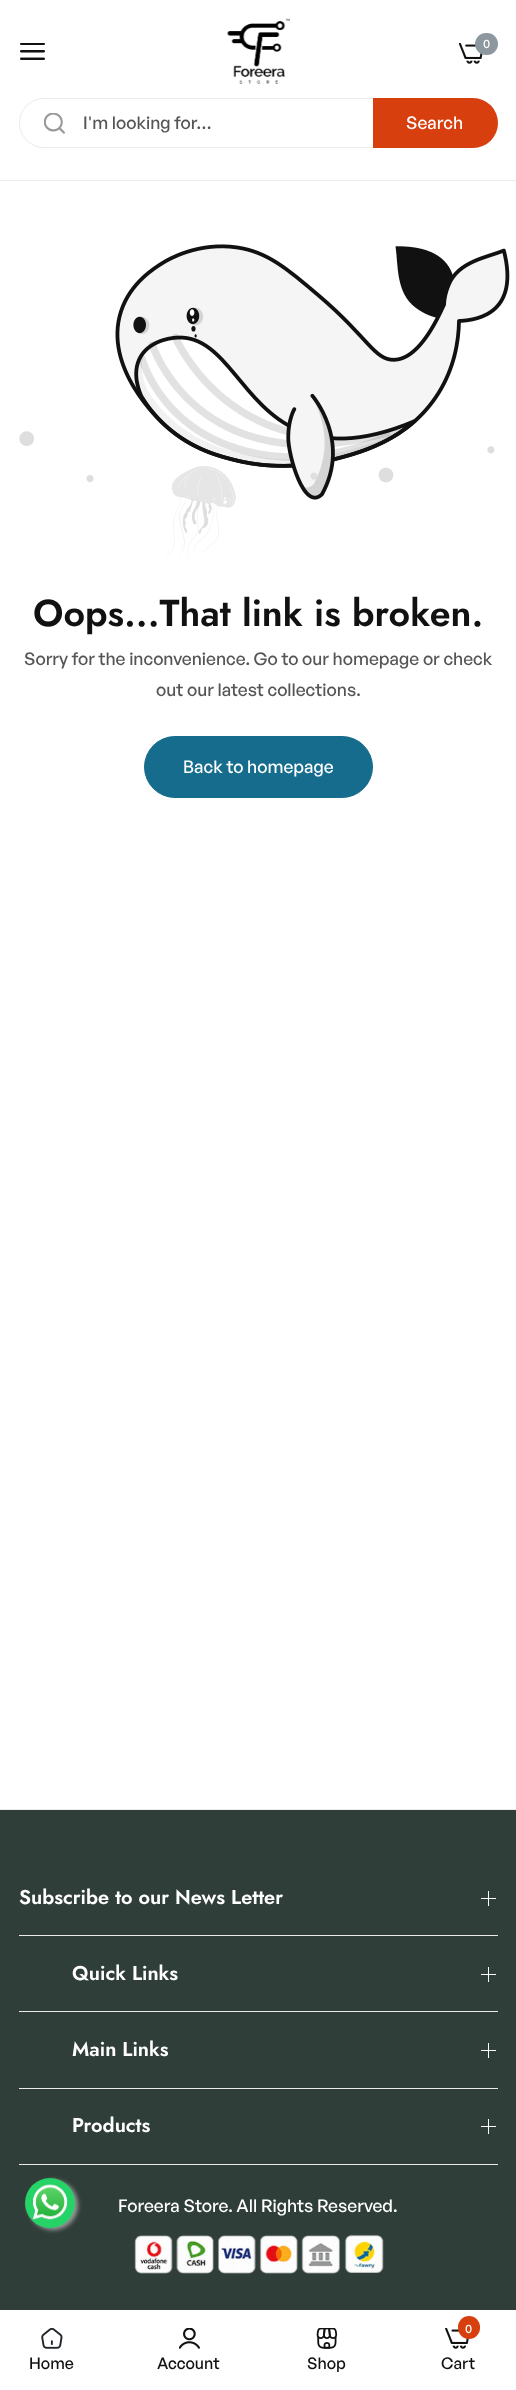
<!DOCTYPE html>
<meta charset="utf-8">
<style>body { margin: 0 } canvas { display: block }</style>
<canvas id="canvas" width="516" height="2390"></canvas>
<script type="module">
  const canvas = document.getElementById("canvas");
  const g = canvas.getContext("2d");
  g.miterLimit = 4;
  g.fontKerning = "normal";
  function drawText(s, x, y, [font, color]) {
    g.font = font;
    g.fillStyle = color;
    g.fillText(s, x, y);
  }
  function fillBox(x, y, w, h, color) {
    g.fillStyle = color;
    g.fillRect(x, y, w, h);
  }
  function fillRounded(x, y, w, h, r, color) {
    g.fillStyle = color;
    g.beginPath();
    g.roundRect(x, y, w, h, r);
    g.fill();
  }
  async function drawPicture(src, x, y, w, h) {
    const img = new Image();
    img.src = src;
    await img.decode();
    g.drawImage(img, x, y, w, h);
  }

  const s1 = ["500 12px General Sans", "#FFFFFF"];
  const s2 = ["500 17.5px General Sans", "#555555"];
  const s3 = ["500 17.5px General Sans", "#FFFFFF"];
  const s4 = ["600 37.5px Jost", "#111111"];
  const s5 = ["600 20px Jost", "#FFFFFF"];
  const s6 = ["500 16px General Sans", "#111111"];

  fillBox(0, 0, 516, 2390, "#FFFFFF");
  fillBox(0, 180, 516, 1, "#EBEBEB");
  await drawPicture("pic1.png", 20, 43, 25, 17);
  await drawPicture("pic2.png", 227, 18, 63, 66);
  await drawPicture("pic3.png", 459, 43, 24, 21);
  fillRounded(475, 33, 23, 22, 11, "#8D979E");
  drawText("0", 483, 48, s1);
  g.beginPath();
  g.roundRect(19.5, 98.5, 478, 49, 24.5);
  g.strokeStyle = "#EBEBEB";
  g.stroke();
  await drawPicture("pic4.png", 44, 113, 21, 21);
  drawText("I'm looking for…", 83, 129, s2);
  g.fillStyle = "#D73F0F";
  g.beginPath();
  g.roundRect(373, 98, 125, 50, [0, 25, 25, 0]);
  g.fill();
  drawText("Search", 406, 129, s3);
  await drawPicture("pic5.png", 19, 244, 491, 315);
  drawText("Oops...That link is broken.", 33, 626, s4);
  drawText("Sorry for the inconvenience. Go to our homepage or check", 24, 665, s2);
  drawText("out our latest collections.", 156, 696, s2);
  g.fillStyle = "#156C8C";
  g.beginPath();
  g.roundRect(144.5, 736.5, 228, 61, 30.5);
  g.fill();
  g.strokeStyle = "#156C8C";
  g.stroke();
  drawText("Back to homepage", 183, 773, s3);
  fillBox(0, 1810, 516, 500, "#303E39");
  fillBox(0, 1809, 516, 1, "#EBEBEB");
  drawText("Subscribe to our News Letter", 19, 1904, s5);
  fillBox(488, 1891, 1, 15, "#FFFFFF");
  fillBox(481, 1898, 15, 1, "#FFFFFF");
  fillBox(19, 1935, 479, 1, "#EBEBEB");
  drawText("Quick Links", 72, 1980, s5);
  fillBox(488, 1967, 1, 15, "#FFFFFF");
  fillBox(481, 1974, 15, 1, "#FFFFFF");
  fillBox(19, 2011, 479, 1, "#EBEBEB");
  drawText("Main Links", 72, 2056, s5);
  fillBox(488, 2043, 1, 15, "#FFFFFF");
  fillBox(481, 2050, 15, 1, "#FFFFFF");
  fillBox(19, 2088, 479, 1, "#EBEBEB");
  drawText("Products", 72, 2132, s5);
  fillBox(488, 2119, 1, 15, "#FFFFFF");
  fillBox(481, 2126, 15, 1, "#FFFFFF");
  fillBox(19, 2164, 479, 1, "#EBEBEB");
  drawText("Foreera Store. All Rights Reserved.", 118, 2212, s3);
  await drawPicture("pic6.png", 134, 2234, 250, 40);
  g.fillStyle = "#999999";
  g.filter = "blur(2px)";
  g.beginPath();
  g.roundRect(28, 2180, 50, 50, 25);
  g.fill();
  g.filter = "none";
  g.fillStyle = "#25D366";
  g.beginPath();
  g.arc(50, 2203, 25, 0, Math.PI * 2);
  g.fill();
  await drawPicture("pic7.png", 32, 2184, 36, 36);
  await drawPicture("pic8.png", 41, 2328, 22, 21);
  drawText("Home", 29, 2369, s6);
  await drawPicture("pic9.png", 179, 2328, 21, 21);
  drawText("Account", 157, 2369, s6);
  await drawPicture("pic10.png", 316, 2328, 22, 21);
  drawText("Shop", 307, 2369, s6);
  await drawPicture("pic11.png", 445, 2328, 24, 21);
  fillRounded(458, 2316, 22, 23, 11, "#D73F0F");
  drawText("0", 465, 2333, s1);
  drawText("Cart", 441, 2369, s6);
</script>
